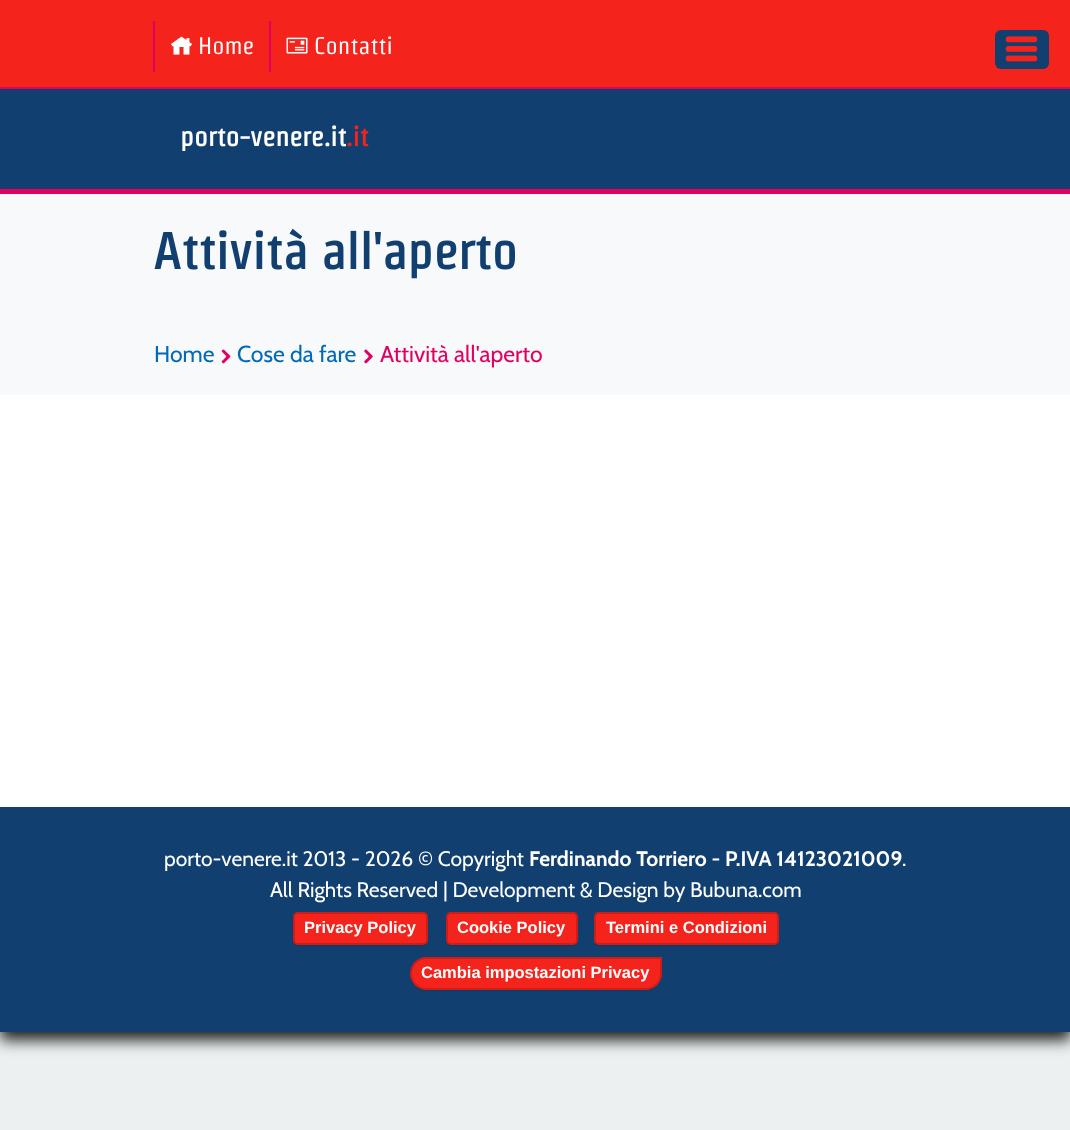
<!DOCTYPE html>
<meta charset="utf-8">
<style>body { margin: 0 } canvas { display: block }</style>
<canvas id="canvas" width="1070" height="1130"></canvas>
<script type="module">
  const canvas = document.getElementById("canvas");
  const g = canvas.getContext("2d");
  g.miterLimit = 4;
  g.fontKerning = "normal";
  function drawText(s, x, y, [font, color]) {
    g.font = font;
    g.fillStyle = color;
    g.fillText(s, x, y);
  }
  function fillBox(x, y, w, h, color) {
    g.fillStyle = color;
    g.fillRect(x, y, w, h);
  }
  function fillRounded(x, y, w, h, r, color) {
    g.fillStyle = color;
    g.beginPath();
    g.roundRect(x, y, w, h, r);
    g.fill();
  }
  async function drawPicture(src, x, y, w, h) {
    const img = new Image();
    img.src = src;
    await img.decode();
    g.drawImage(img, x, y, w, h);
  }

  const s1 = ["24px Strait", "#FFFFFF"];
  const s2 = ["bold 27px Strait", "#FFFFFF"];
  const s3 = ["bold 27px Strait", "#F4231B"];
  const s4 = ["bold 51px Strait", "#103F70"];
  const s5 = ["23px Cabin", "#0269B6"];
  const s6 = ["23px Cabin", "#E10062"];
  const s7 = ["21px Cabin", "#FFFFFF"];
  const s8 = ["bold 21px Cabin", "#FFFFFF"];
  const s9 = ["bold 16.5px Liberation Sans", "#FFFFFF"];

  fillBox(0, 0, 1070, 1130, "#ECF0F1");
  g.fillStyle = "#1C1C1C";
  g.filter = "blur(7.5px)";
  g.beginPath();
  g.rect(0, 8, 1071, 1032);
  g.fill();
  g.filter = "none";
  fillBox(0, 0, 1070, 87, "#F4231B");
  fillBox(0, 87, 1070, 2, "#E10062");
  fillBox(153, 21, 2, 51, "#E10062");
  await drawPicture("pic1.png", 171, 36, 21, 19);
  drawText("Home", 198, 54, s1);
  fillBox(269, 21, 2, 51, "#E10062");
  await drawPicture("pic2.png", 286, 37, 22, 17);
  drawText("Contatti", 314, 54, s1);
  fillRounded(995, 30, 54, 39, 6, "#103F70");
  await drawPicture("pic3.png", 1005, 36, 33, 26);
  fillBox(0, 89, 1070, 100, "#103F70");
  fillBox(0, 189, 1070, 5, "#E10062");
  drawText("porto-venere.it", 180, 146, s2);
  drawText(".it", 346, 146, s3);
  fillBox(0, 395, 1070, 412, "#FFFFFF");
  fillBox(0, 194, 1070, 201, "#F8F9FA");
  drawText("Attività all'aperto", 153, 269, s4);
  drawText("Home", 154, 362, s5);
  await drawPicture("pic4.png", 221, 349, 10, 15);
  drawText("Cose da fare", 237, 362, s5);
  await drawPicture("pic5.png", 364, 349, 9, 15);
  drawText("Attività all'aperto", 380, 362, s6);
  fillBox(0, 807, 1070, 225, "#103F70");
  drawText("porto-venere.it 2013 - 2026 © Copyright", 164, 866, s7);
  drawText("Ferdinando Torriero - P.IVA 14123021009", 529, 866, s8);
  drawText(".", 902, 866, s7);
  drawText("All Rights Reserved | Development & Design by Bubuna.com", 270, 897, s7);
  g.fillStyle = "rgba(0, 0, 0, 0.15)";
  g.filter = "blur(1px)";
  g.beginPath();
  g.roundRect(294, 915, 132, 30, 3);
  g.fill();
  g.filter = "none";
  fillRounded(293, 912, 135, 33, 5, "#F4231B");
  g.beginPath();
  g.roundRect(294, 913, 133, 31, 4);
  g.strokeStyle = "rgba(0, 0, 0, 0.15)";
  g.lineWidth = 2;
  g.stroke();
  drawText("Privacy Policy", 304, 933, s9);
  g.fillStyle = "rgba(0, 0, 0, 0.15)";
  g.filter = "blur(1px)";
  g.beginPath();
  g.roundRect(447, 915, 129, 30, 3);
  g.fill();
  g.filter = "none";
  fillRounded(446, 912, 132, 33, 5, "#F4231B");
  g.beginPath();
  g.roundRect(447, 913, 130, 31, 4);
  g.stroke();
  drawText("Cookie Policy", 457, 933, s9);
  g.fillStyle = "rgba(0, 0, 0, 0.15)";
  g.filter = "blur(1px)";
  g.beginPath();
  g.roundRect(596, 915, 181, 30, 3);
  g.fill();
  g.filter = "none";
  fillRounded(594, 912, 185, 33, 5, "#F4231B");
  g.beginPath();
  g.roundRect(595, 913, 183, 31, 4);
  g.stroke();
  drawText("Termini e Condizioni", 606, 933, s9);
  g.fillStyle = "rgba(0, 0, 0, 0.15)";
  g.filter = "blur(1px)";
  g.beginPath();
  g.roundRect(411, 960, 249, 30, 15);
  g.fill();
  g.filter = "none";
  g.fillStyle = "#F4231B";
  g.beginPath();
  g.roundRect(410, 957, 252, 33, [16.5, 0, 16.5, 16.5]);
  g.fill();
  g.beginPath();
  g.roundRect(411, 958, 250, 31, [15.5, 0, 15.5, 15.5]);
  g.stroke();
  drawText("Cambia impostazioni Privacy", 421, 978, s9);
</script>
